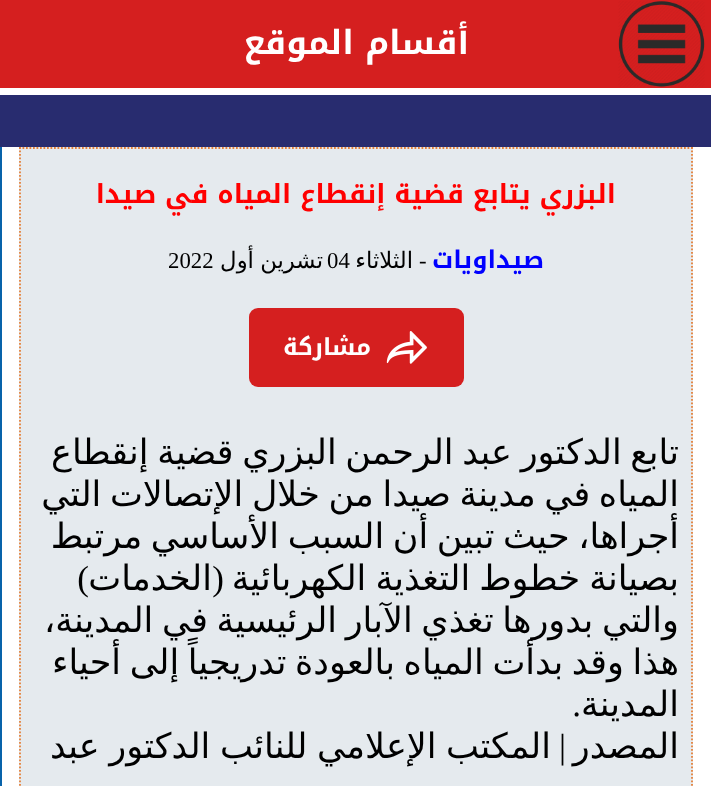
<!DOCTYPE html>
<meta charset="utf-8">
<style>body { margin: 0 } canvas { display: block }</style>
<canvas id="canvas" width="711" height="786"></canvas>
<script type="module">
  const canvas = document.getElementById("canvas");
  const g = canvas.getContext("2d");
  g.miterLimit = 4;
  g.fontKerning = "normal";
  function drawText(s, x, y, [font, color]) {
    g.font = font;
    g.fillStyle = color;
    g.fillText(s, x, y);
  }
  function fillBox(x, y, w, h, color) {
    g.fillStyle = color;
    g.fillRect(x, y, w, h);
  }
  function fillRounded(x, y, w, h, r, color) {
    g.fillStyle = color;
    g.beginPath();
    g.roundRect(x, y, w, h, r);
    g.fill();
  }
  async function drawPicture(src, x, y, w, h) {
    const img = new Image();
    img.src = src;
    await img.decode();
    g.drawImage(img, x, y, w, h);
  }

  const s1 = ["bold 33.25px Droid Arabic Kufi", "#FFFFFF"];
  const s2 = ["bold 26.25px Droid Arabic Kufi", "#FF0000"];
  const s3 = ["bold 24.5px Droid Arabic Kufi", "#0000FF"];
  const s4 = ["22.75px Liberation Serif", "#000000"];
  const s5 = ["22.75px DejaVu Sans", "#000000"];
  const s6 = ["bold 23.5px Droid Arabic Kufi", "#FFFFFF"];
  const s7 = ["35px DejaVu Sans", "#000000"];
  const s8 = ["35px Liberation Serif", "#000000"];

  fillBox(0, 0, 711, 786, "#FFFFFF");
  fillBox(0, 0, 711, 88, "#D51F1F");
  await drawPicture("pic1.png", 618, 1, 87, 86);
  g.direction = "rtl";
  drawText("أقسام الموقع", 469, 54, s1);
  fillBox(0, 95, 711, 52, "#282C6F");
  fillBox(0, 147, 2, 639, "#0863AA");
  fillBox(19, 147, 674, 639, "#E5EAEE");
  g.beginPath();
  g.moveTo(19, 148);
  g.lineTo(693, 148);
  g.strokeStyle = "#E48139";
  g.lineWidth = 1.8;
  g.setLineDash([1.75, 1.75]);
  g.stroke();
  g.beginPath();
  g.moveTo(692, 147);
  g.lineTo(692, 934.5);
  g.stroke();
  g.beginPath();
  g.moveTo(20, 147);
  g.lineTo(20, 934.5);
  g.stroke();
  drawText("البزري يتابع قضية إنقطاع المياه في صيدا", 616, 203, s2);
  drawText("صيداويات", 544, 268, s3);
  g.direction = "ltr";
  drawText("-", 419, 268, s4);
  g.direction = "rtl";
  drawText("الثلاثاء", 413, 268, s5);
  g.direction = "ltr";
  drawText("04", 327, 268, s4);
  g.wordSpacing = "-1px";
  g.direction = "rtl";
  drawText("تشرين أول", 323, 268, s5);
  g.wordSpacing = "0px";
  g.direction = "ltr";
  drawText("2022", 168, 268, s4);
  fillRounded(249, 308, 215, 79, 9, "#D51F1F");
  await drawPicture("pic2.png", 386, 331, 41, 33);
  g.direction = "rtl";
  drawText("مشاركة", 371, 355, s6);
  g.wordSpacing = "-2.5px";
  drawText("تابع الدكتور عبد الرحمن البزري قضية إنقطاع", 679, 464, s7);
  drawText("المياه في مدينة صيدا من خلال الإتصالات التي", 679, 506, s7);
  drawText("أجراها، حيث تبين أن السبب الأساسي مرتبط", 679, 548, s7);
  g.wordSpacing = "-2px";
  drawText("بصيانة خطوط التغذية الكهربائية", 679, 590, s7);
  g.wordSpacing = "0px";
  drawText("(", 224, 590, s8);
  drawText("الخدمات", 212, 590, s7);
  drawText(")", 89, 590, s8);
  g.wordSpacing = "-2.5px";
  drawText("والتي بدورها تغذي الآبار الرئيسية في المدينة،", 679, 632, s7);
  drawText("هذا وقد بدأت المياه بالعودة تدريجياً إلى أحياء", 679, 674, s7);
  g.wordSpacing = "0px";
  drawText("المدينة", 679, 716, s7);
  drawText(".", 581, 716, s8);
  drawText("المصدر", 679, 758, s7);
  drawText("|", 566, 758, s8);
  g.wordSpacing = "-1.5px";
  drawText("المكتب الإعلامي للنائب الدكتور عبد", 551, 758, s7);
</script>
